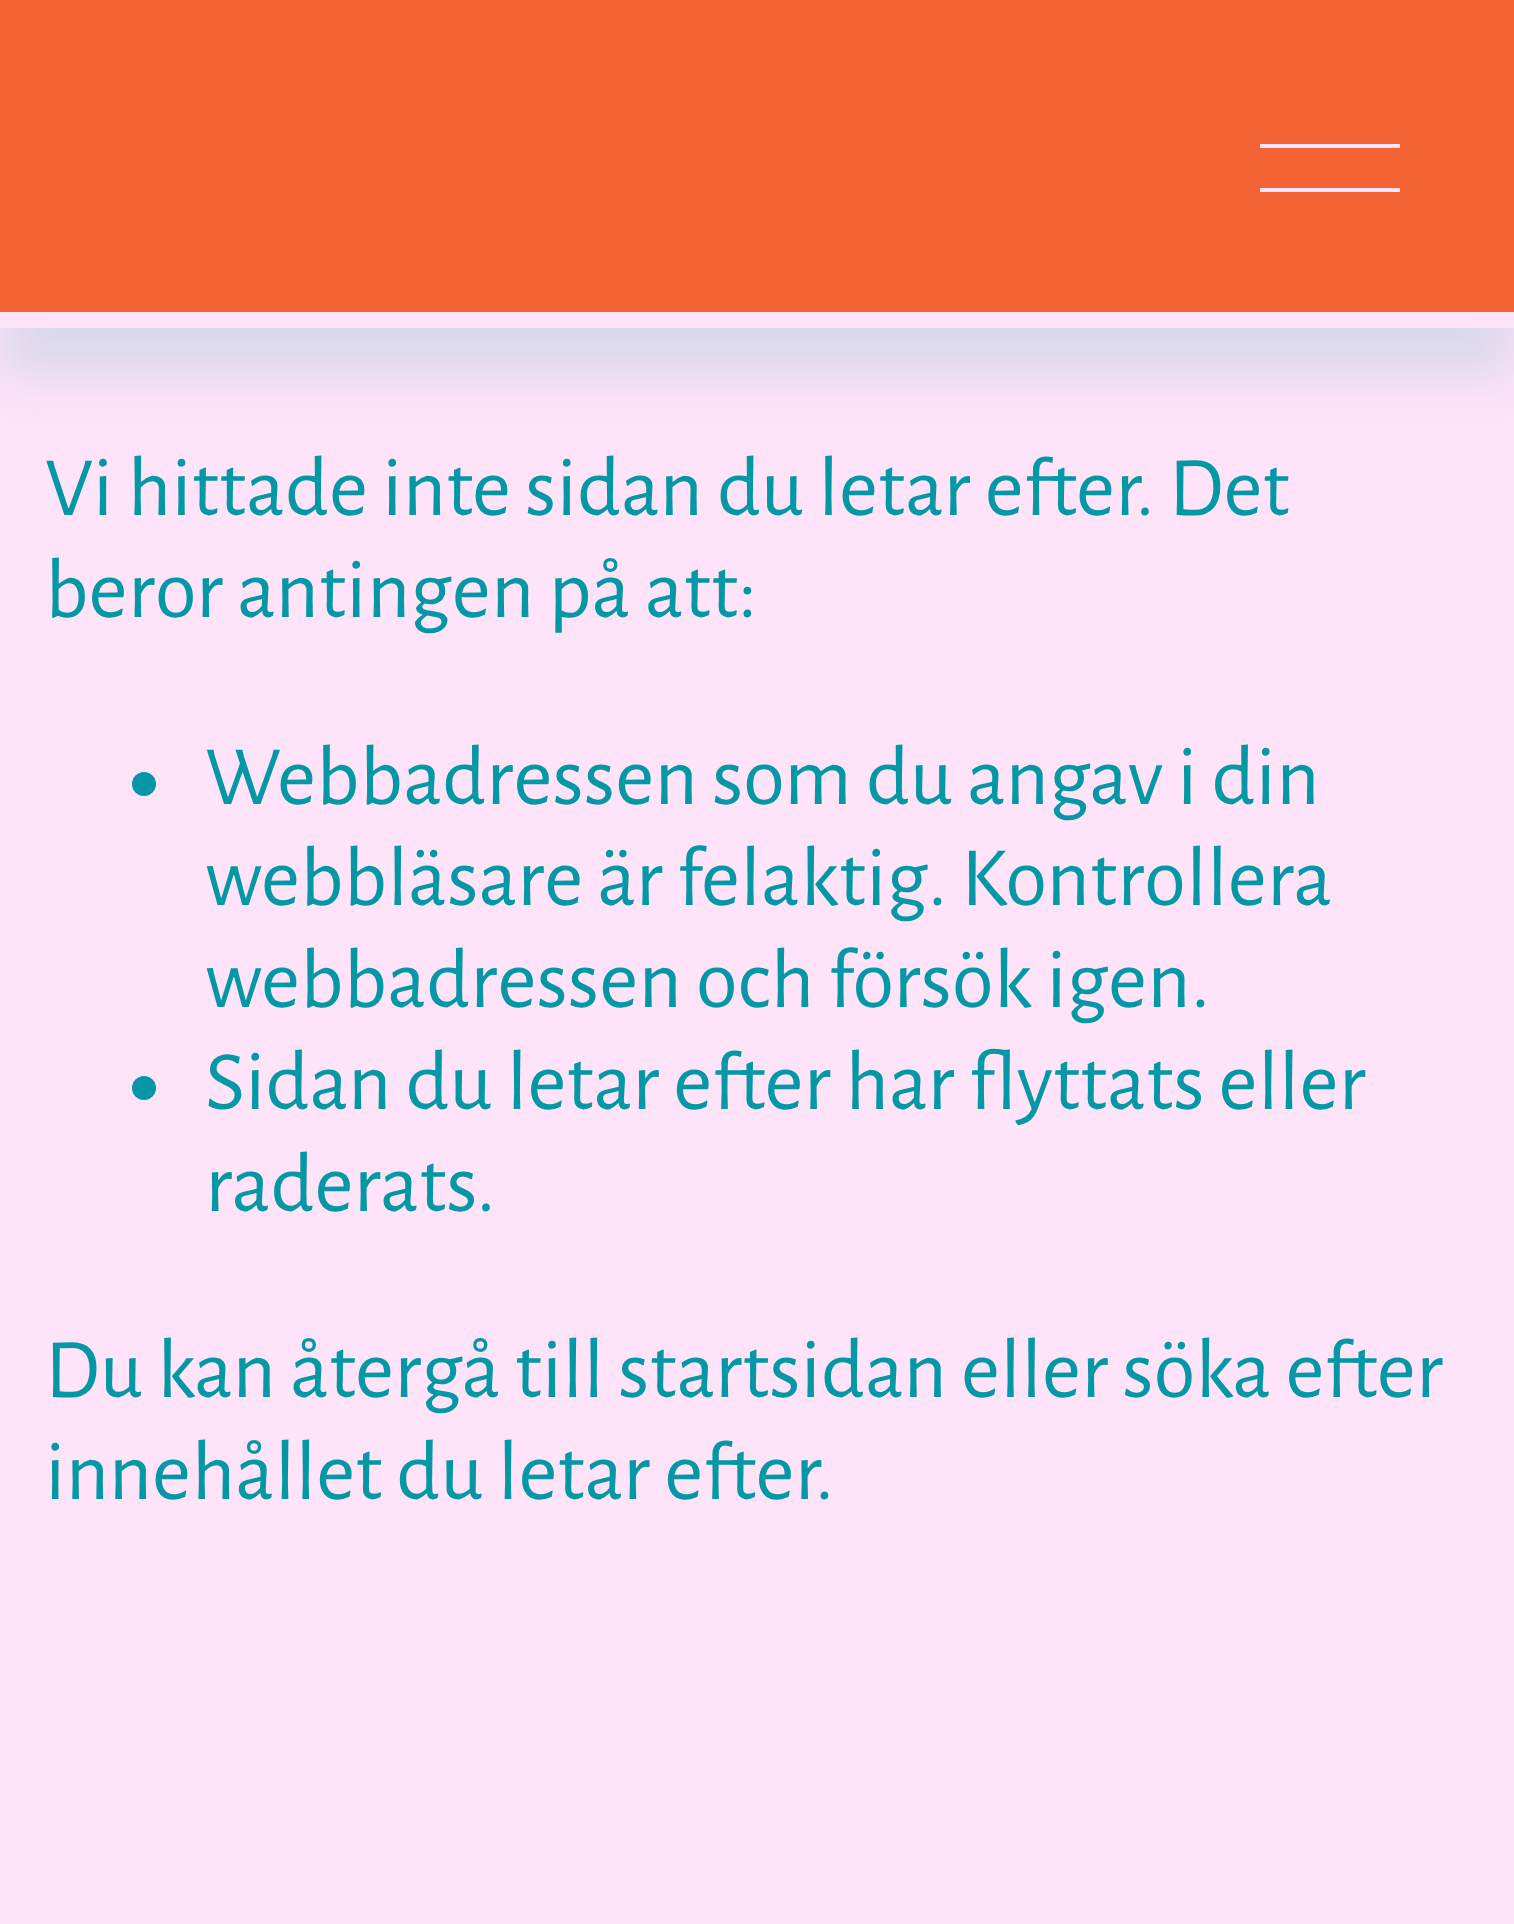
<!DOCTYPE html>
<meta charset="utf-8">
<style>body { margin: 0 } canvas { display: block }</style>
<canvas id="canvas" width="1514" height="1924"></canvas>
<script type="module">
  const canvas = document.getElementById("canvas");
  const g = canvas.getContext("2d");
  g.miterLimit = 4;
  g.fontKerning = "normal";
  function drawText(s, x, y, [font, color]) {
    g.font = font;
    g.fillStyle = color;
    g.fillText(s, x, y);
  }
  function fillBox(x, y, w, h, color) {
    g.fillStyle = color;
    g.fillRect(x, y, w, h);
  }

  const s1 = ["84.75px Alegreya Sans", "#0497A6"];

  fillBox(0, 0, 1514, 1924, "#FFE3F8");
  g.fillStyle = "#DAD8EC";
  g.filter = "blur(24px)";
  g.beginPath();
  g.rect(0, 48, 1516, 328);
  g.fill();
  g.filter = "none";
  fillBox(0, 0, 1514, 312, "#F26232");
  fillBox(1260, 144, 140, 4, "#FFE3F8");
  fillBox(1260, 188, 140, 4, "#FFE3F8");
  fillBox(0, 312, 1514, 16, "#FFE3F8");
  drawText("Vi hittade inte sidan du letar efter. Det", 45, 515, s1);
  drawText("beror antingen på att:", 45, 617, s1);
  g.beginPath();
  g.arc(144, 784, 12, 0, Math.PI * 2);
  g.fill();
  drawText("Webbadressen som du angav i din", 205, 804, s1);
  drawText("webbläsare är felaktig. Kontrollera", 205, 905, s1);
  drawText("webbadressen och försök igen.", 205, 1007, s1);
  g.beginPath();
  g.arc(144, 1088, 12, 0, Math.PI * 2);
  g.fill();
  drawText("Sidan du letar efter har flyttats eller", 205, 1109, s1);
  drawText("raderats.", 205, 1211, s1);
  drawText("Du kan återgå till startsidan eller söka efter", 45, 1397, s1);
  drawText("innehållet du letar efter.", 45, 1499, s1);
</script>
